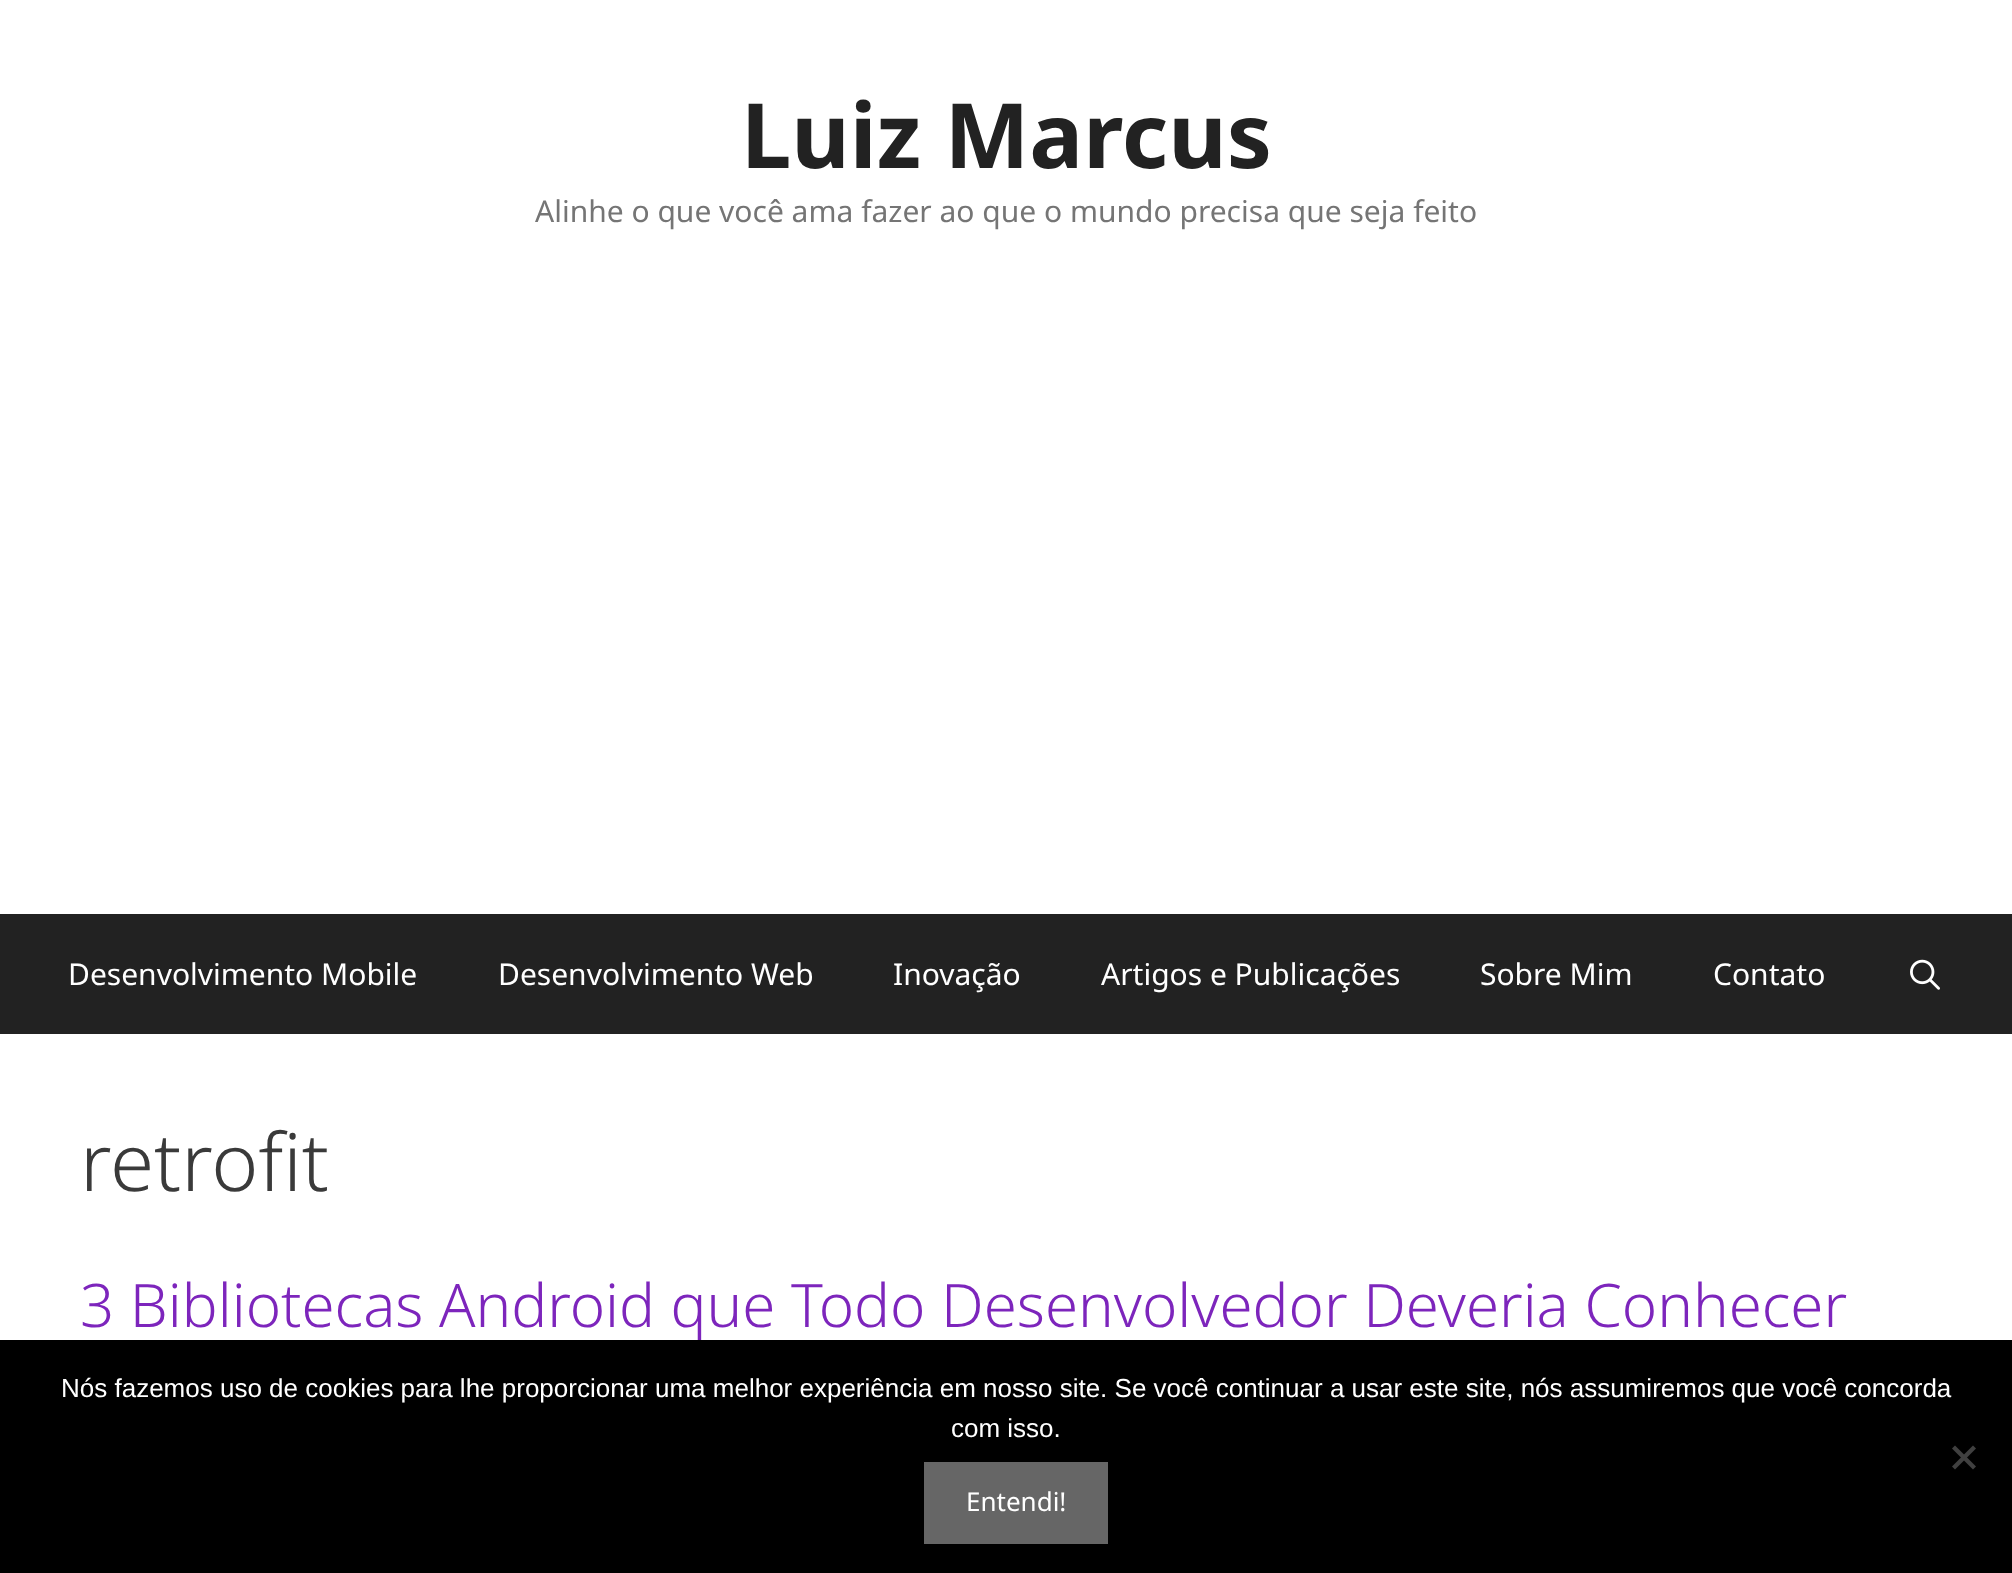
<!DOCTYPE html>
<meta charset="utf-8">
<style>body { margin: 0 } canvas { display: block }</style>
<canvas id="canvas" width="2012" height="1573"></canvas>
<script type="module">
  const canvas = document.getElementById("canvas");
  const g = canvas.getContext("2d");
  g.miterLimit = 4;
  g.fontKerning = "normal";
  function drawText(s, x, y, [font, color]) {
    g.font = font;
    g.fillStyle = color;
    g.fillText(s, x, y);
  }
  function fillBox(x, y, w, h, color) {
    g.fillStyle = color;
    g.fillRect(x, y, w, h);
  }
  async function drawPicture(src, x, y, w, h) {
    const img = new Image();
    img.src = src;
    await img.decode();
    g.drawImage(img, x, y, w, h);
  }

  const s1 = ["bold 90px Noto Sans", "#222222"];
  const s2 = ["30px Noto Sans", "#757575"];
  const s3 = ["30px Noto Sans", "#FFFFFF"];
  const s4 = ["300 80px Noto Sans", "#3A3A3A"];
  const s5 = ["300 60px Noto Sans", "#7D25BC"];
  const s6 = ["26px Liberation Sans", "#FFFFFF"];
  const s7 = ["26px Noto Sans", "#FFFFFF"];

  fillBox(0, 0, 2012, 1573, "#222222");
  fillBox(0, 0, 2012, 914, "#FFFFFF");
  drawText("Luiz Marcus", 741, 168, s1);
  drawText("Alinhe o que você ama fazer ao que o mundo precisa que seja feito", 535, 222, s2);
  drawText("Desenvolvimento Mobile", 68, 985, s3);
  drawText("Desenvolvimento Web", 498, 985, s3);
  drawText("Inovação", 893, 985, s3);
  drawText("Artigos e Publicações", 1101, 985, s3);
  drawText("Sobre Mim", 1480, 985, s3);
  drawText("Contato", 1713, 985, s3);
  await drawPicture("pic1.png", 1910, 959, 30, 31);
  fillBox(0, 1034, 2012, 306, "#FFFFFF");
  drawText("retrofit", 80, 1191, s4);
  drawText("3 Bibliotecas Android que Todo Desenvolvedor Deveria Conhecer", 80, 1327, s5);
  fillBox(0, 1340, 2012, 233, "#000000");
  drawText("Nós fazemos uso de cookies para lhe proporcionar uma melhor experiência em nosso site. Se você continuar a usar este site, nós assumiremos que você concorda", 61, 1397, s6);
  drawText("com isso.", 951, 1437, s6);
  g.fillStyle = "#404040";
  g.beginPath();
  g.moveTo(1973, 1445.5);
  g.lineTo(1976, 1448.5);
  g.lineTo(1955, 1469.5);
  g.lineTo(1952, 1466.5);
  g.closePath();
  g.fill();
  g.beginPath();
  g.moveTo(1952, 1448.5);
  g.lineTo(1955, 1445.5);
  g.lineTo(1976, 1466.5);
  g.lineTo(1973, 1469.5);
  g.closePath();
  g.fill();
  fillBox(924, 1462, 184, 82, "#666666");
  drawText("Entendi!", 966, 1511, s7);
</script>
